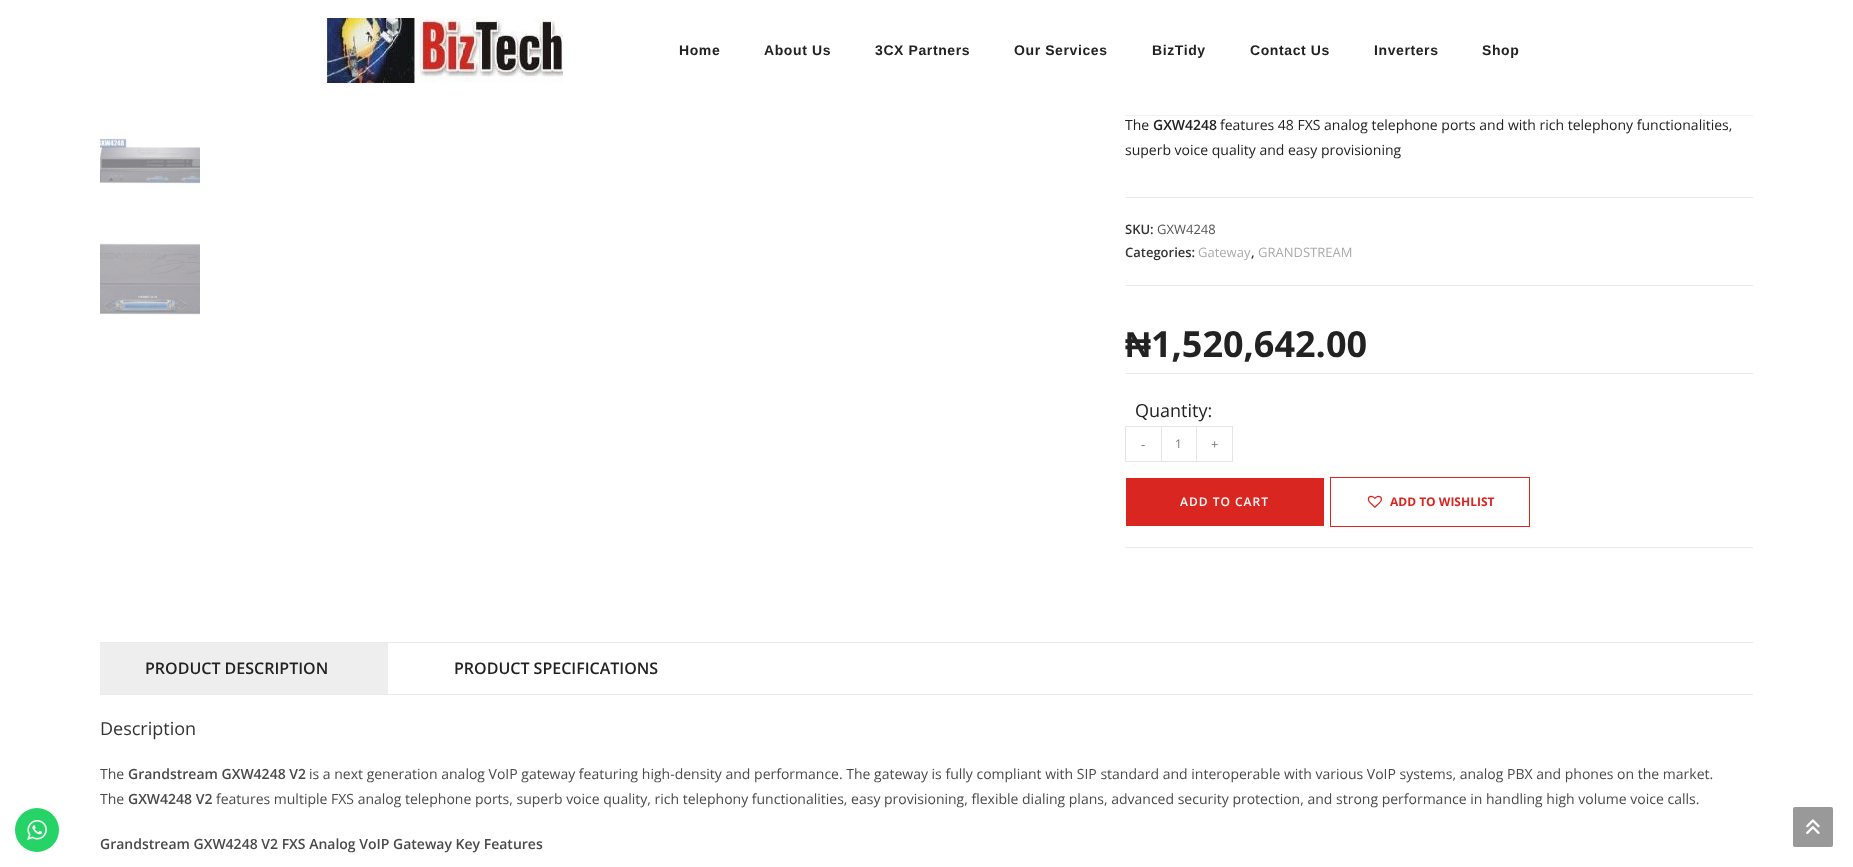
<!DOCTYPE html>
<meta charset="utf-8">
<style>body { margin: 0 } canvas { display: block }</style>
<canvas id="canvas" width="1853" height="867"></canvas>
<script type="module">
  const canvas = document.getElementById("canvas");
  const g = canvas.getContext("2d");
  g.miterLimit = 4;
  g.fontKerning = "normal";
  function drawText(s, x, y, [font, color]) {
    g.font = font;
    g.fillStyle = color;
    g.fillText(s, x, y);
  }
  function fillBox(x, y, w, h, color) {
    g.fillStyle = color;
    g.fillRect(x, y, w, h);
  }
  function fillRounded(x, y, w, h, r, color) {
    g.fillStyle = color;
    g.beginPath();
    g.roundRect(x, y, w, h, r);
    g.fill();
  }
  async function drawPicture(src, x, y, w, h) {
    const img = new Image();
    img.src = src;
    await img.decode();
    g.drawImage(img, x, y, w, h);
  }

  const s1 = ["bold 14px Liberation Sans", "#222222"];
  const s2 = ["14px Open Sans", "#222222"];
  const s3 = ["600 14px Open Sans", "#222222"];
  const s4 = ["600 13px Open Sans", "#333333"];
  const s5 = ["13px Open Sans", "#555555"];
  const s6 = ["13px Open Sans", "#ABABAB"];
  const s7 = ["bold 36px Liberation Sans", "#222222"];
  const s8 = ["bold 36px Open Sans", "#222222"];
  const s9 = ["18px Open Sans", "#222222"];
  const s10 = ["13px Open Sans", "#777777"];
  const s11 = ["12px Open Sans", "#777777"];
  const s12 = ["600 12px Open Sans", "#FFFFFF"];
  const s13 = ["bold 12px Open Sans", "#DA2620"];
  const s14 = ["600 16px Open Sans", "#222222"];
  const s15 = ["18px Open Sans", "#333333"];
  const s16 = ["14px Open Sans", "#4A4A4A"];
  const s17 = ["600 14px Open Sans", "#4A4A4A"];

  fillBox(0, 0, 1853, 867, "#FFFFFF");
  g.fillStyle = "#25D366";
  g.beginPath();
  g.arc(37, 830, 22, 0, Math.PI * 2);
  g.fill();
  await drawPicture("pic1.png", 27, 820, 20, 20);
  await drawPicture("pic2.png", 327, 18, 236, 65);
  g.letterSpacing = "0.6px";
  drawText("Home", 679, 55, s1);
  drawText("About Us", 764, 55, s1);
  drawText("3CX Partners", 875, 55, s1);
  drawText("Our Services", 1014, 55, s1);
  drawText("BizTidy", 1152, 55, s1);
  drawText("Contact Us", 1250, 55, s1);
  drawText("Inverters", 1374, 55, s1);
  drawText("Shop", 1482, 55, s1);
  await drawPicture("pic3.png", 100, 131, 100, 56);
  await drawPicture("pic4.png", 100, 243, 100, 72);
  fillBox(1125, 115, 628, 1, "#F1F1F1");
  g.letterSpacing = "0px";
  drawText("The", 1125, 130, s2);
  drawText("GXW4248", 1153, 130, s3);
  drawText("features 48 FXS analog telephone ports and with rich telephony functionalities,", 1220, 130, s2);
  drawText("superb voice quality and easy provisioning", 1125, 155, s2);
  fillBox(1125, 197, 628, 1, "#EAEAEA");
  fillBox(1125, 285, 628, 1, "#EAEAEA");
  drawText("SKU:", 1125, 234, s4);
  drawText("GXW4248", 1157, 234, s5);
  drawText("Categories:", 1125, 257, s4);
  drawText("Gateway", 1198, 257, s6);
  drawText(",", 1251, 257, s4);
  drawText("GRANDSTREAM", 1258, 257, s6);
  drawText("₦", 1125, 357, s7);
  drawText("1,520,642.00", 1151, 357, s8);
  fillBox(1125, 373, 628, 1, "#EAEAEA");
  fillBox(1125, 547, 628, 1, "#EAEAEA");
  drawText("Quantity:", 1135, 417, s9);
  fillBox(1125, 426, 36, 1, "#E4E4E4");
  fillBox(1125, 461, 36, 1, "#E4E4E4");
  fillBox(1125, 426, 1, 36, "#E4E4E4");
  drawText("-", 1141, 449, s10);
  g.strokeStyle = "#E4E4E4";
  g.strokeRect(1161.5, 426.5, 35, 35);
  drawText("1", 1175, 448, s11);
  fillBox(1197, 426, 36, 1, "#E4E4E4");
  fillBox(1232, 426, 1, 36, "#E4E4E4");
  fillBox(1197, 461, 36, 1, "#E4E4E4");
  drawText("+", 1211, 449, s10);
  fillBox(1126, 478, 198, 48, "#DA2620");
  g.letterSpacing = "1px";
  drawText("ADD TO CART", 1180, 506, s12);
  g.strokeStyle = "#DA2620";
  g.strokeRect(1330.5, 477.5, 199, 49);
  await drawPicture("pic5.png", 1367, 495, 15, 13);
  g.letterSpacing = "0px";
  drawText("ADD TO WISHLIST", 1390, 506, s13);
  fillBox(100, 642, 1653, 1, "#EAEAEA");
  fillBox(100, 694, 1653, 1, "#EAEAEA");
  fillBox(100, 643, 288, 51, "#EEEEEE");
  drawText("PRODUCT DESCRIPTION", 145, 674, s14);
  drawText("PRODUCT SPECIFICATIONS", 454, 674, s14);
  drawText("Description", 100, 735, s15);
  drawText("The", 100, 779, s16);
  drawText("Grandstream GXW4248 V2", 128, 779, s17);
  drawText("is a next generation analog VoIP gateway featuring high-density and performance. The gateway is fully compliant with SIP standard and interoperable with various VoIP systems, analog PBX and phones on the market.", 309, 779, s16);
  drawText("The", 100, 804, s16);
  drawText("GXW4248 V2", 128, 804, s17);
  drawText("features multiple FXS analog telephone ports, superb voice quality, rich telephony functionalities, easy provisioning, flexible dialing plans, advanced security protection, and strong performance in handling high volume voice calls.", 216, 804, s16);
  drawText("Grandstream GXW4248 V2 FXS Analog VoIP Gateway Key Features", 100, 849, s17);
  fillRounded(1793, 807, 40, 40, 2, "#999999");
  await drawPicture("pic6.png", 1806, 819, 14, 15);
</script>
